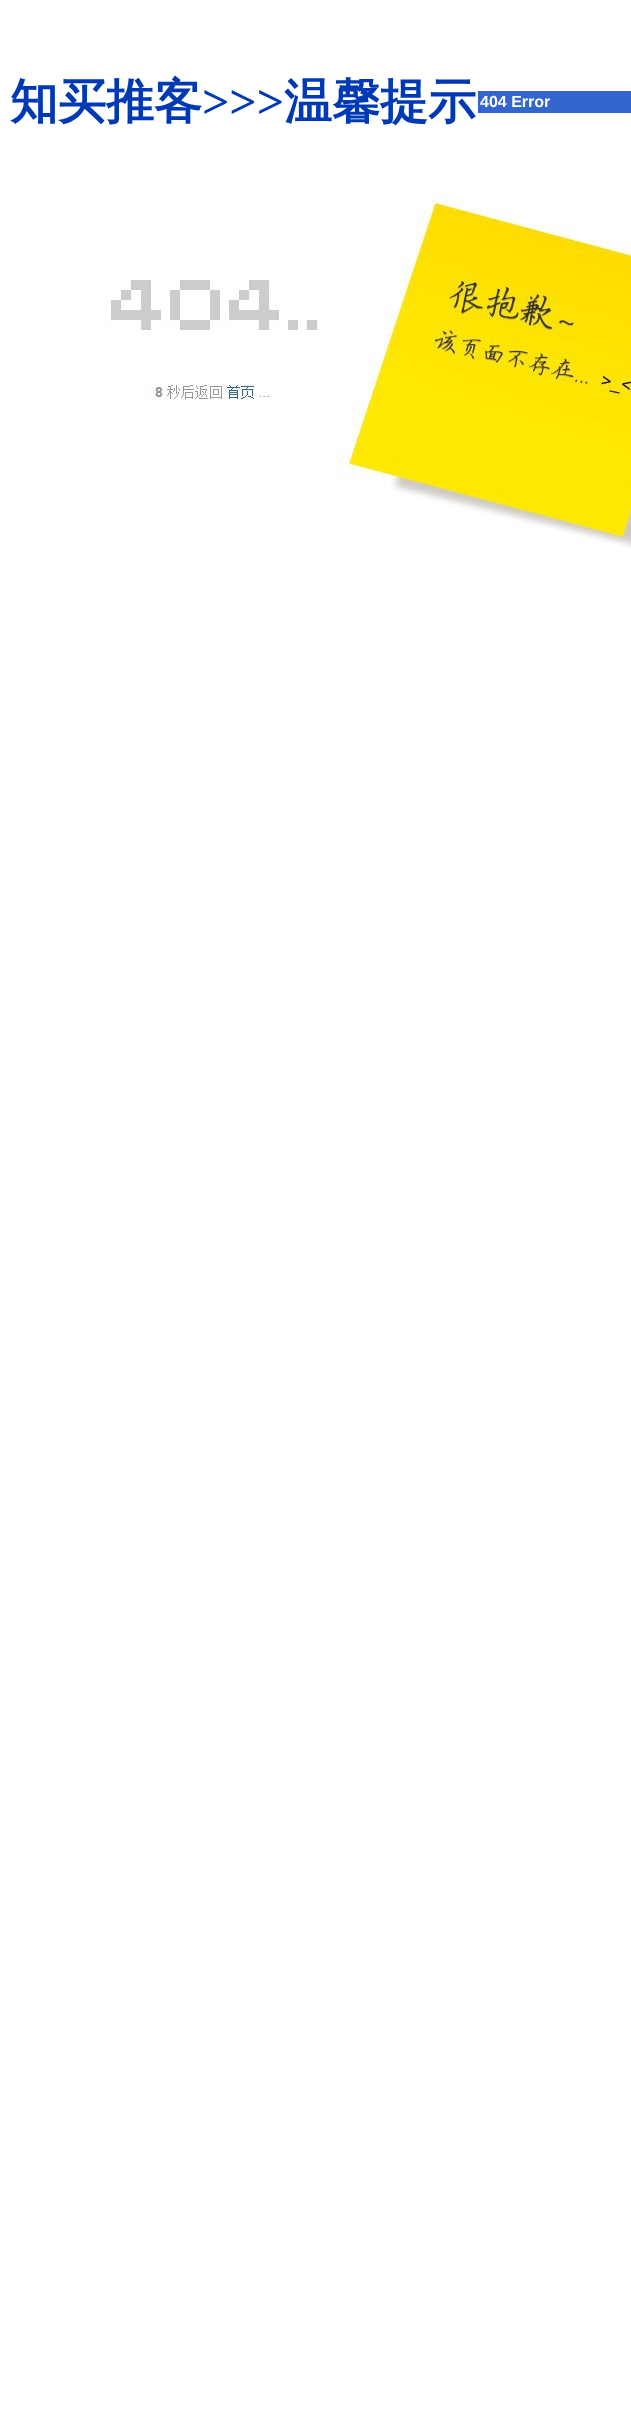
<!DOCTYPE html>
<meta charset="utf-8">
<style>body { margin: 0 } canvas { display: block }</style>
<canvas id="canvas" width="631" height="2428"></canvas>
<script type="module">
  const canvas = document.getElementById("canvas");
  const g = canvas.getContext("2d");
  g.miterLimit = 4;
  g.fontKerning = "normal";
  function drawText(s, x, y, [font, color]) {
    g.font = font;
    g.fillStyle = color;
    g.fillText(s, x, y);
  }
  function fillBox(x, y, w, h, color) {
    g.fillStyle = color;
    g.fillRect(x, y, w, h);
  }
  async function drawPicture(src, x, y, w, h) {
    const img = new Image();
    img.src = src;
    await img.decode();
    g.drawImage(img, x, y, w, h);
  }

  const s1 = ["bold 48px WenQuanYi Zen Hei", "#0039B6"];
  const s2 = ["bold 48px Liberation Serif", "#0039B6"];
  const s3 = ["bold 16px Liberation Sans", "#FFFFFF"];

  fillBox(0, 0, 631, 2428, "#FFFFFF");
  drawText("知买推客", 10, 118, s1);
  drawText(">>>", 202, 118, s2);
  drawText("温馨提示", 284, 118, s1);
  fillBox(478, 91, 153, 22, "#3366CC");
  drawText("404 Error", 480, 107, s3);
  await drawPicture("pic1.png", 105, 191, 526, 358);
</script>
